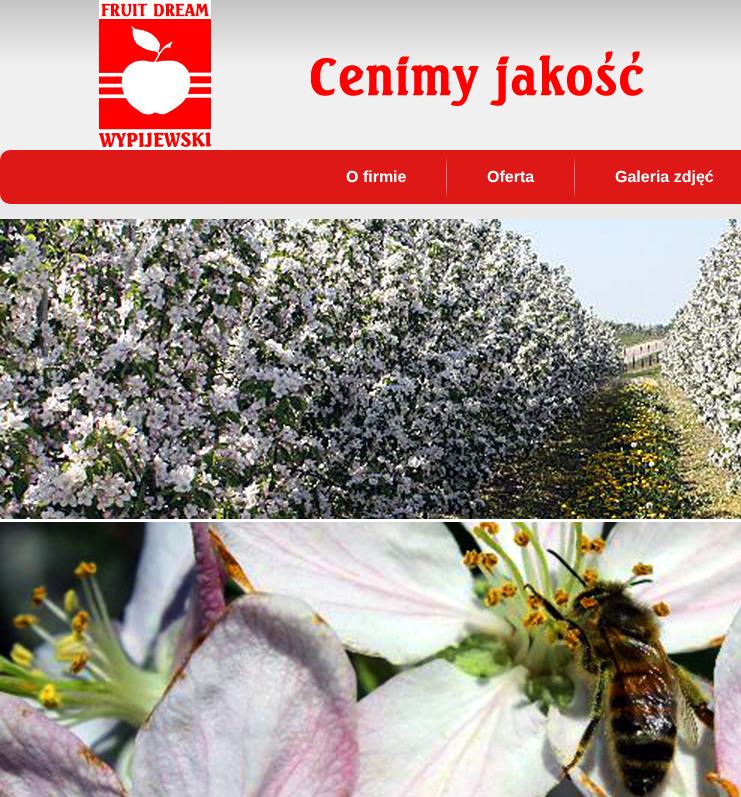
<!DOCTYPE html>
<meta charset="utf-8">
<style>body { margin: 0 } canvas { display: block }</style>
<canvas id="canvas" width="741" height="797"></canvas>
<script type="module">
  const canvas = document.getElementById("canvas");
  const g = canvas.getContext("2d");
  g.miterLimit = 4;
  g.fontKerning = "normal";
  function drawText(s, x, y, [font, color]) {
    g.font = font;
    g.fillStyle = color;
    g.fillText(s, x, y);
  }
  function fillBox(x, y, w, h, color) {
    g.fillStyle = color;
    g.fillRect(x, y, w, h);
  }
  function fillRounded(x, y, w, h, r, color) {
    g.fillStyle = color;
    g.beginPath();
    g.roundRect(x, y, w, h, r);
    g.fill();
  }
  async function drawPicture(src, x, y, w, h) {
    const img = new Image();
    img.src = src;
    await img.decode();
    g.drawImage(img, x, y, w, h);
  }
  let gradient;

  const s1 = ["bold 16px Liberation Sans", "#FFFFFF"];

  fillBox(0, 0, 741, 797, "#FFFFFF");
  gradient = g.createLinearGradient(370, 0, 371, 797);
  gradient.addColorStop(0, "#D9D9D9");
  gradient.addColorStop(0.63, "#FFFFFF");
  g.fillStyle = gradient;
  g.fillRect(0, 150, 741, 320);
  await drawPicture("pic1.png", 0, 0, 741, 150);
  await drawPicture("pic2.png", 99, 0, 112, 150);
  await drawPicture("pic3.png", 311, 51, 333, 55);
  fillRounded(0, 150, 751, 54, 10, "#DE1717");
  drawText("O firmie", 346, 182, s1);
  await drawPicture("pic4.png", 446, 156, 1, 43);
  drawText("Oferta", 487, 182, s1);
  await drawPicture("pic4.png", 574, 156, 1, 43);
  drawText("Galeria zdjęć", 615, 182, s1);
  await drawPicture("pic5.png", 0, 219, 741, 300);
  await drawPicture("pic6.png", 0, 522, 741, 275);
</script>
